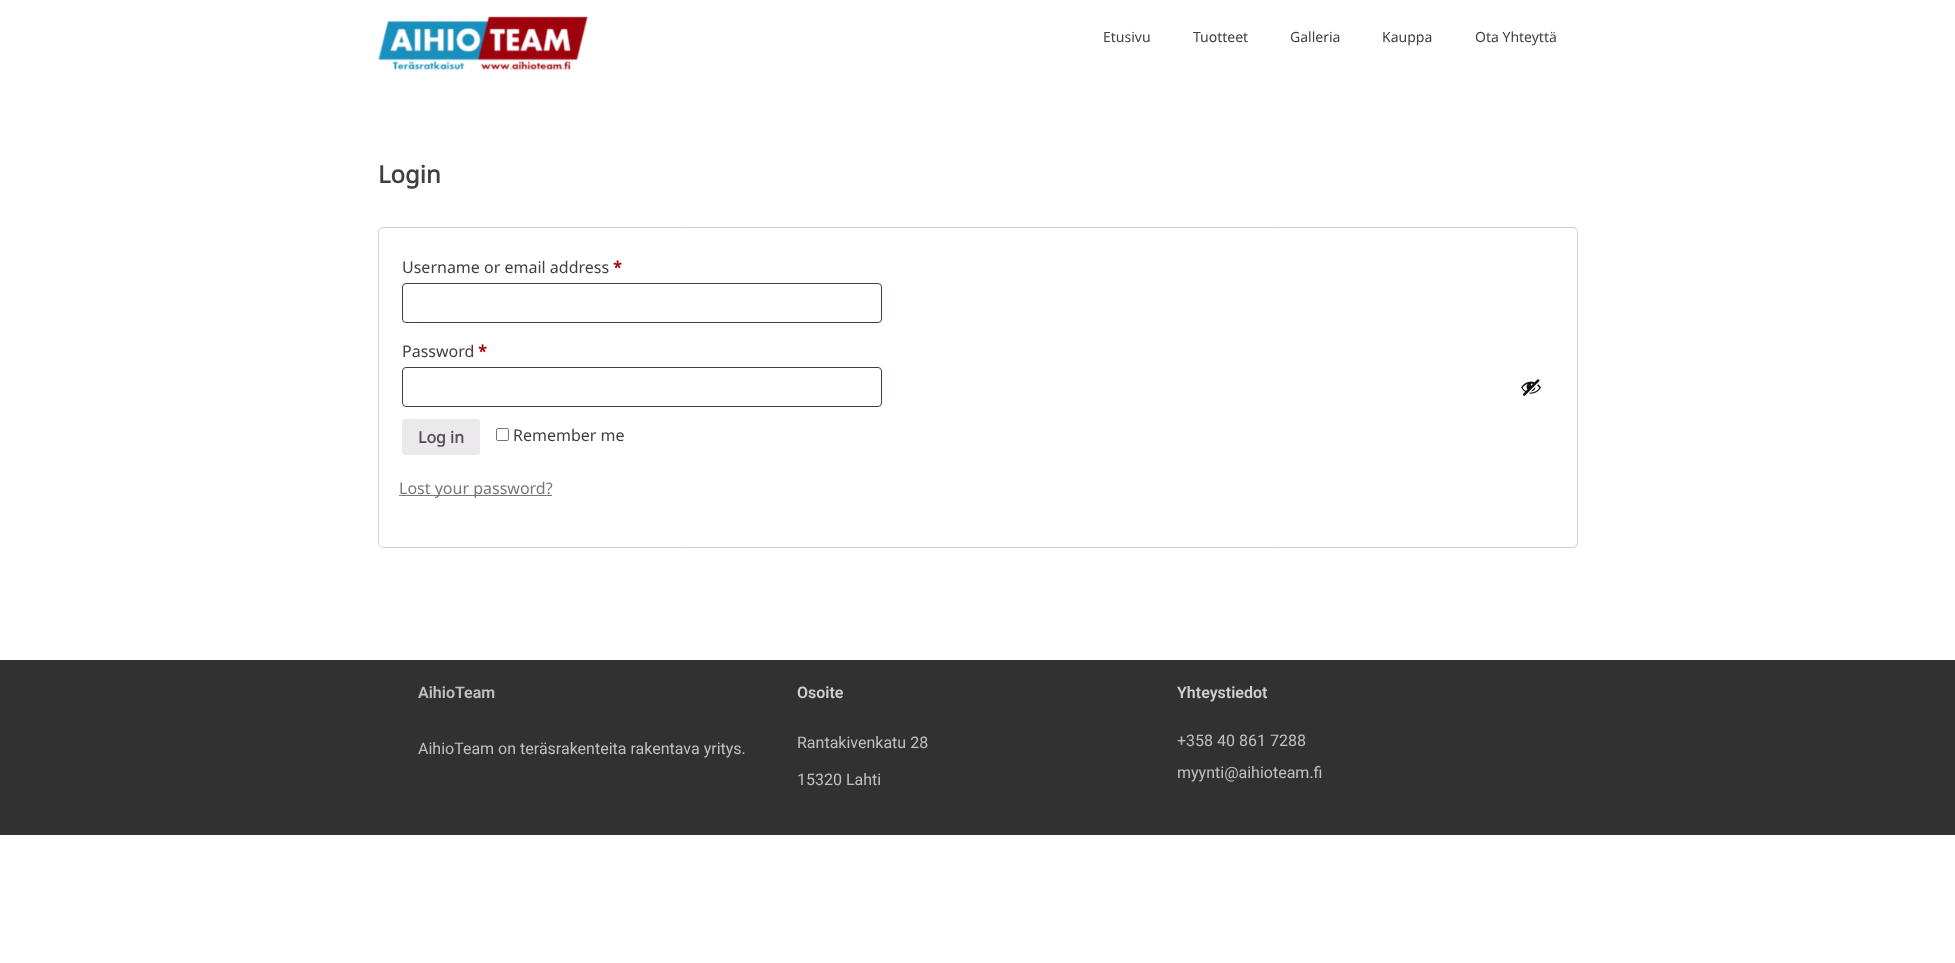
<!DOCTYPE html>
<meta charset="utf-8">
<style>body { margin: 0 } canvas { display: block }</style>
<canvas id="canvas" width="1955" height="963"></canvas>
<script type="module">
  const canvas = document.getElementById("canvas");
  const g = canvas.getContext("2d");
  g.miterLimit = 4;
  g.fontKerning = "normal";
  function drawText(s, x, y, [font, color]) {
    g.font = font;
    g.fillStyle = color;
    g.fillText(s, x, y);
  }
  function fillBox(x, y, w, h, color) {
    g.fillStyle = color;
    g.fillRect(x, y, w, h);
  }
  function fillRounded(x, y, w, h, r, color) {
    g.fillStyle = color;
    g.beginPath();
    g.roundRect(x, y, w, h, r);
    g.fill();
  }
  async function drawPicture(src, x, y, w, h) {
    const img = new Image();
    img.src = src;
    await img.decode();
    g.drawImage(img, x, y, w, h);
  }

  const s1 = ["14px Noto Sans", "#404040"];
  const s2 = ["bold 24px Noto Sans", "#404040"];
  const s3 = ["16px Noto Sans", "#404040"];
  const s4 = ["bold 16px Noto Sans", "#AA0000"];
  const s5 = ["bold 16px Noto Sans", "#515151"];
  const s6 = ["16px Noto Sans", "#777777"];
  const s7 = ["600 16px Roboto", "#C0C0C0"];
  const s8 = ["16px Roboto", "#C0C0C0"];
  const s9 = ["600 16px Roboto", "#CFCFCF"];

  fillBox(0, 0, 1955, 963, "#FFFFFF");
  await drawPicture("pic1.png", 378, 16, 211, 54);
  drawText("Etusivu", 1103, 42, s1);
  drawText("Tuotteet", 1193, 42, s1);
  drawText("Galleria", 1290, 42, s1);
  drawText("Kauppa", 1382, 42, s1);
  drawText("Ota Yhteyttä", 1475, 42, s1);
  drawText("Login", 378, 183, s2);
  g.beginPath();
  g.roundRect(378.5, 227.5, 1199, 320, 4.5);
  g.strokeStyle = "#D3CED3";
  g.stroke();
  drawText("Username or email address", 402, 273, s3);
  drawText("*", 613, 273, s4);
  g.beginPath();
  g.roundRect(402.5, 283.5, 479, 39, 3.5);
  g.strokeStyle = "#4D3939";
  g.stroke();
  drawText("Password", 402, 357, s3);
  drawText("*", 478, 357, s4);
  g.beginPath();
  g.roundRect(402.5, 367.5, 479, 39, 3.5);
  g.stroke();
  await drawPicture("pic2.png", 1521, 379, 20, 17);
  fillRounded(402, 419, 78, 36, 3, "#EBE9EB");
  drawText("Log in", 418, 443, s5);
  g.beginPath();
  g.roundRect(496.5, 428.5, 12, 12, 1.5);
  g.strokeStyle = "#767676";
  g.stroke();
  drawText("Remember me", 513, 441, s3);
  fillBox(399, 495, 153, 1, "#777777");
  drawText("Lost your password?", 399, 494, s6);
  fillBox(0, 660, 1955, 175, "#313131");
  drawText("AihioTeam", 418, 698, s7);
  drawText("AihioTeam on teräsrakenteita rakentava yritys.", 418, 754, s8);
  drawText("Osoite", 797, 698, s9);
  drawText("Rantakivenkatu 28", 797, 748, s8);
  drawText("15320 Lahti", 797, 785, s8);
  drawText("Yhteystiedot", 1177, 698, s9);
  drawText("+358 40 861 7288", 1177, 746, s8);
  drawText("myynti@aihioteam.fi", 1177, 778, s8);
</script>
